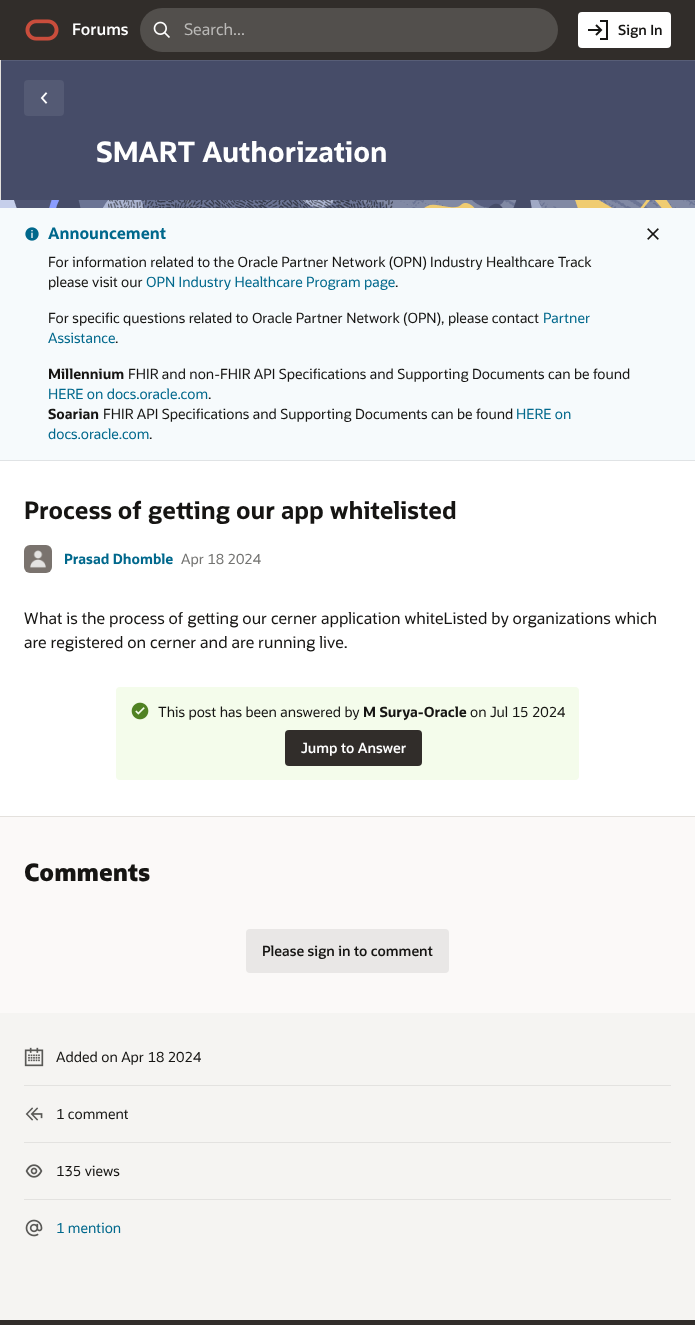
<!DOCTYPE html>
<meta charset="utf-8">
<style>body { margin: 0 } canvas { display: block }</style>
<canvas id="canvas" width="695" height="1325"></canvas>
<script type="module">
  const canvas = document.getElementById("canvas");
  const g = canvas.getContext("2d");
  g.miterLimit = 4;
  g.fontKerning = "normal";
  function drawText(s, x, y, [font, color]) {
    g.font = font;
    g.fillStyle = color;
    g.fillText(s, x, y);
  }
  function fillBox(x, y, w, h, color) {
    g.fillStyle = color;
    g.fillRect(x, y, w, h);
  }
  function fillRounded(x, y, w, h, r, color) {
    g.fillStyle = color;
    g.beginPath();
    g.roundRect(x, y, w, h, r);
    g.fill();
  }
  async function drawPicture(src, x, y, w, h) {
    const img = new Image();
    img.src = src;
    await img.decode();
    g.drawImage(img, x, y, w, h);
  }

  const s1 = ["600 16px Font", "#FFFFFF"];
  const s2 = ["16px Font", "#BAB9B7"];
  const s3 = ["600 14px Font", "#161513"];
  const s4 = ["bold 28px Font", "#FFFFFF"];
  const s5 = ["bold 16px Font", "#00688C"];
  const s6 = ["14px Font", "#161513"];
  const s7 = ["14px Font", "#00688C"];
  const s8 = ["bold 14px Font", "#161513"];
  const s9 = ["bold 24px Font", "#161513"];
  const s10 = ["bold 14px Font", "#00688C"];
  const s11 = ["14px Font", "#737371"];
  const s12 = ["16px Font", "#161513"];
  const s13 = ["600 14px Font", "#FFFFFF"];
  const s14 = ["800 24px Font", "#161513"];

  fillBox(0, 0, 695, 1325, "#E4E1DD");
  fillBox(1, 60, 694, 140, "#464C68");
  g.strokeStyle = "rgba(255, 255, 255, 0.1)";
  g.strokeRect(-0.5, -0.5, 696, 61);
  fillBox(0, 0, 695, 60, "#312D2A");
  await drawPicture("pic1.png", 25, 19, 34, 22);
  drawText("Forums", 72, 35, s1);
  fillRounded(140, 8, 418, 44, 22, "#524F4C");
  await drawPicture("pic2.png", 153, 21, 17, 17);
  drawText("Search...", 184, 35, s2);
  fillRounded(578, 12, 93, 36, 4, "#FFFFFF");
  await drawPicture("pic3.png", 588, 20, 20, 20);
  drawText("Sign In", 618, 35, s3);
  fillRounded(24, 80, 40, 36, 4, "#545A74");
  await drawPicture("pic4.png", 40, 92, 8, 12);
  drawText("SMART Authorization", 96, 162, s4);
  fillBox(0, 817, 695, 196, "#FBF9F8");
  await drawPicture("pic5.png", 0, 200, 695, 8);
  fillBox(0, 208, 695, 252, "#F6FAFC");
  fillBox(0, 460, 695, 1, "#E0E3E5");
  await drawPicture("pic6.png", 25, 227, 14, 14);
  drawText("Announcement", 48, 239, s5);
  drawText("For information related to the Oracle Partner Network (OPN) Industry Healthcare Track", 48, 267, s6);
  drawText("please visit our", 48, 287, s6);
  drawText("OPN Industry Healthcare Program page", 146, 287, s7);
  drawText(".", 395, 287, s6);
  drawText("For specific questions related to Oracle Partner Network (OPN), please contact", 48, 323, s6);
  drawText("Partner", 543, 323, s7);
  drawText("Assistance", 48, 343, s7);
  drawText(".", 115, 343, s6);
  drawText("Millennium", 48, 379, s8);
  drawText("FHIR and non-FHIR API Specifications and Supporting Documents can be found", 128, 379, s6);
  drawText("HERE on docs.oracle.com", 48, 399, s7);
  drawText(".", 208, 399, s6);
  drawText("Soarian", 48, 419, s8);
  drawText("FHIR API Specifications and Supporting Documents can be found", 103, 419, s6);
  drawText("HERE on", 516, 419, s7);
  drawText("docs.oracle.com", 48, 439, s7);
  drawText(".", 149, 439, s6);
  await drawPicture("pic7.png", 647, 228, 12, 12);
  fillBox(0, 461, 695, 355, "#FFFFFF");
  drawText("Process of getting our app whitelisted", 24, 519, s9);
  await drawPicture("pic8.png", 24, 545, 28, 28);
  drawText("Prasad Dhomble", 64, 564, s10);
  drawText("Apr 18 2024", 181, 564, s11);
  drawText("What is the process of getting our cerner application whiteListed by organizations which", 24, 624, s12);
  drawText("are registered on cerner and are running live.", 24, 648, s12);
  fillRounded(116, 687, 463, 93, 4, "#F4FCEB");
  await drawPicture("pic9.png", 131, 702, 18, 18);
  drawText("This post has been answered by", 158, 717, s6);
  drawText("M Surya-Oracle", 363, 717, s8);
  drawText("on Jul 15 2024", 470, 717, s6);
  fillRounded(285, 730, 137, 36, 4, "#312D2A");
  drawText("Jump to Answer", 301, 753, s13);
  drawText("Comments", 24, 881, s14);
  fillRounded(246, 929, 203, 44, 4, "#E9E7E6");
  drawText("Please sign in to comment", 262, 956, s3);
  fillBox(0, 1013, 695, 307, "#F5F4F2");
  fillBox(24, 1085, 647, 1, "#E3E2E0");
  await drawPicture("pic10.png", 24, 1047, 20, 20);
  drawText("Added on Apr 18 2024", 56, 1062, s6);
  fillBox(24, 1142, 647, 1, "#E3E2E0");
  await drawPicture("pic11.png", 25, 1107, 18, 14);
  drawText("1 comment", 56, 1119, s6);
  fillBox(24, 1199, 647, 1, "#E3E2E0");
  await drawPicture("pic12.png", 25, 1164, 18, 14);
  drawText("135 views", 56, 1176, s6);
  await drawPicture("pic13.png", 25, 1219, 18, 18);
  drawText("1 mention", 56, 1233, s7);
  fillBox(0, 1320, 695, 5, "#312D2A");
</script>
